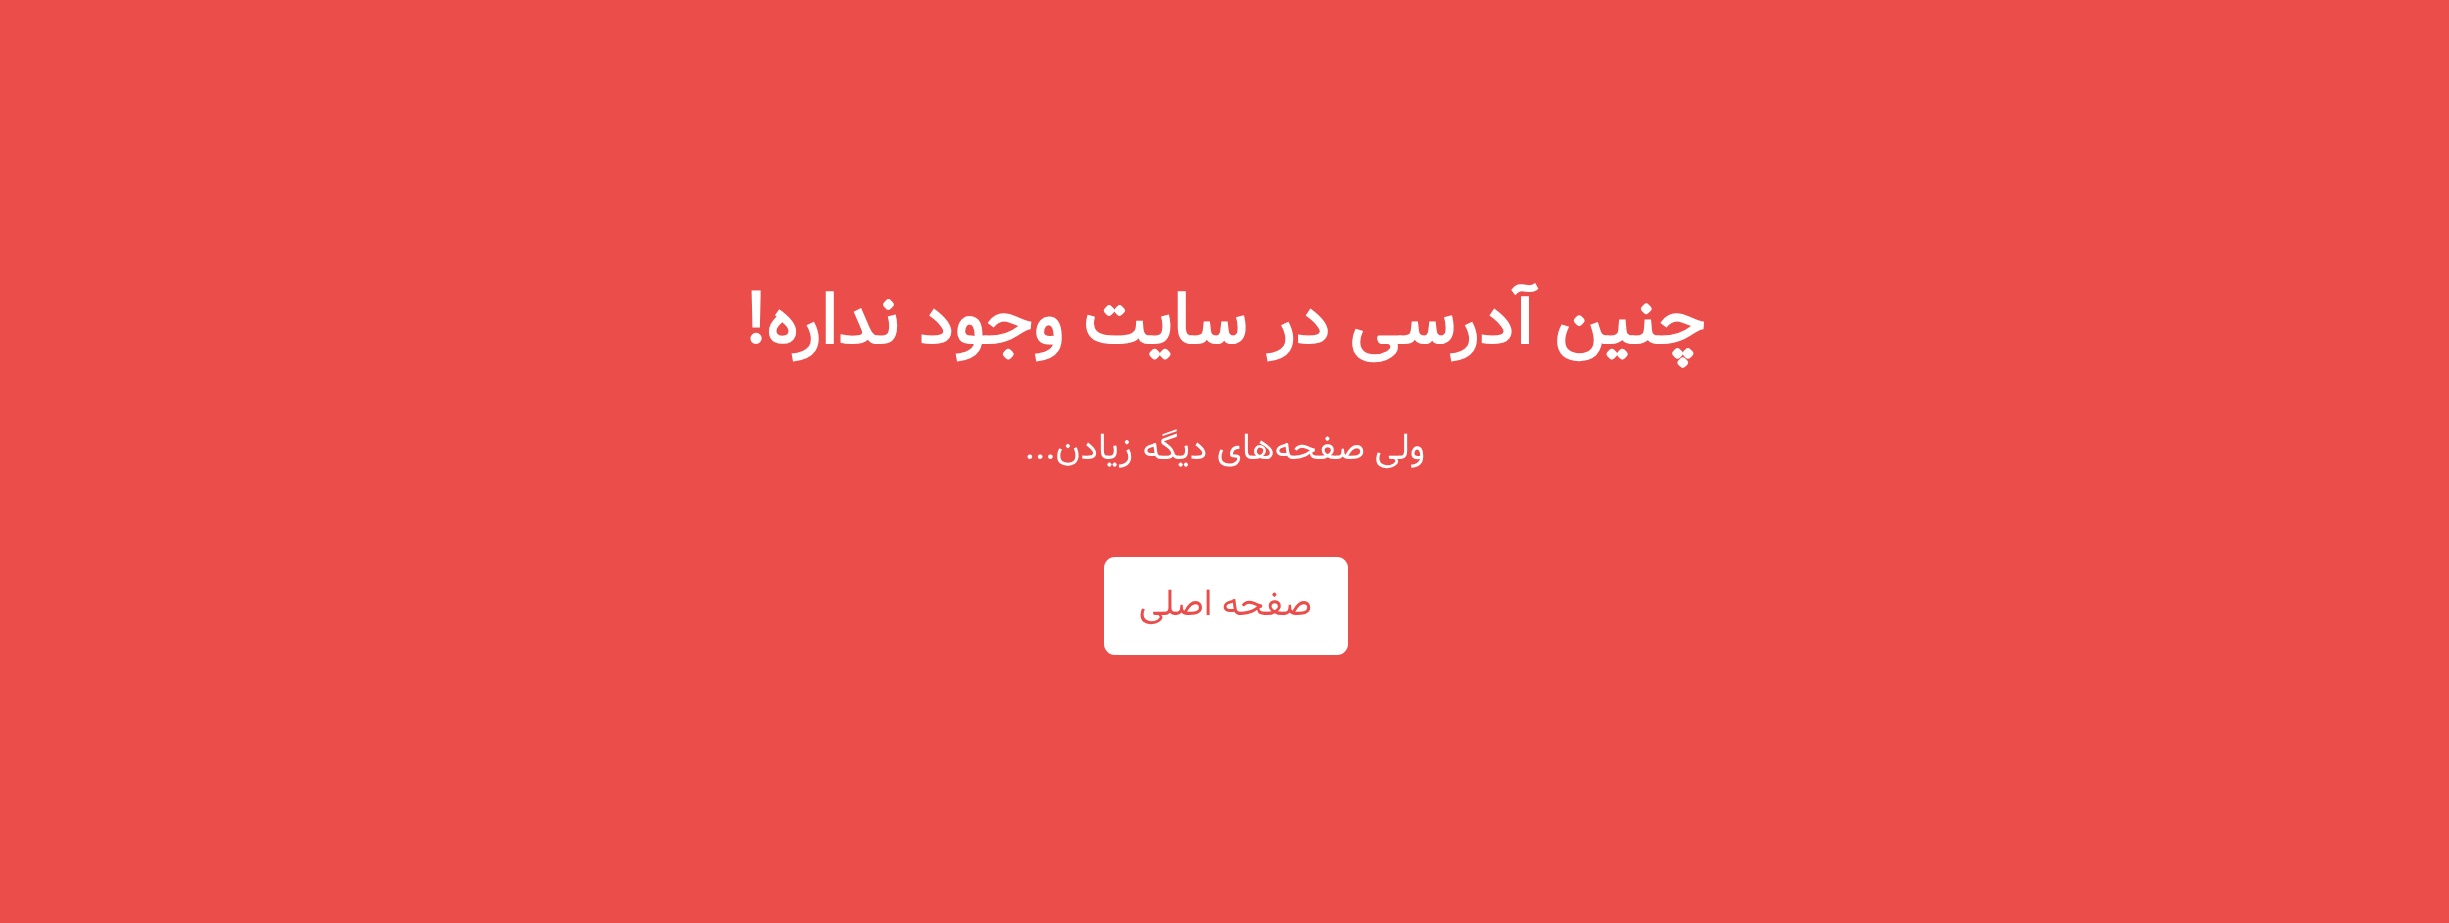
<!DOCTYPE html>
<meta charset="utf-8">
<style>body { margin: 0 } canvas { display: block }</style>
<canvas id="canvas" width="2449" height="923"></canvas>
<script type="module">
  const canvas = document.getElementById("canvas");
  const g = canvas.getContext("2d");
  g.miterLimit = 4;
  g.fontKerning = "normal";
  function drawText(s, x, y, [font, color]) {
    g.font = font;
    g.fillStyle = color;
    g.fillText(s, x, y);
  }
  function fillBox(x, y, w, h, color) {
    g.fillStyle = color;
    g.fillRect(x, y, w, h);
  }
  function fillRounded(x, y, w, h, r, color) {
    g.fillStyle = color;
    g.beginPath();
    g.roundRect(x, y, w, h, r);
    g.fill();
  }

  const s1 = ["bold 70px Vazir", "#FFFFFF"];
  const s2 = ["35px Vazir", "#FFFFFF"];
  const s3 = ["35px Vazir", "#EB4D4B"];

  fillBox(0, 0, 2449, 923, "#EB4D4B");
  g.direction = "rtl";
  drawText("چنین آدرسی در سایت وجود نداره!", 1705, 344, s1);
  drawText("ولی صفحه‌های دیگه زیادن...", 1425, 459, s2);
  fillRounded(1104, 557, 244, 98, 11, "#FFFFFF");
  drawText("صفحه اصلی", 1312, 615, s3);
</script>
